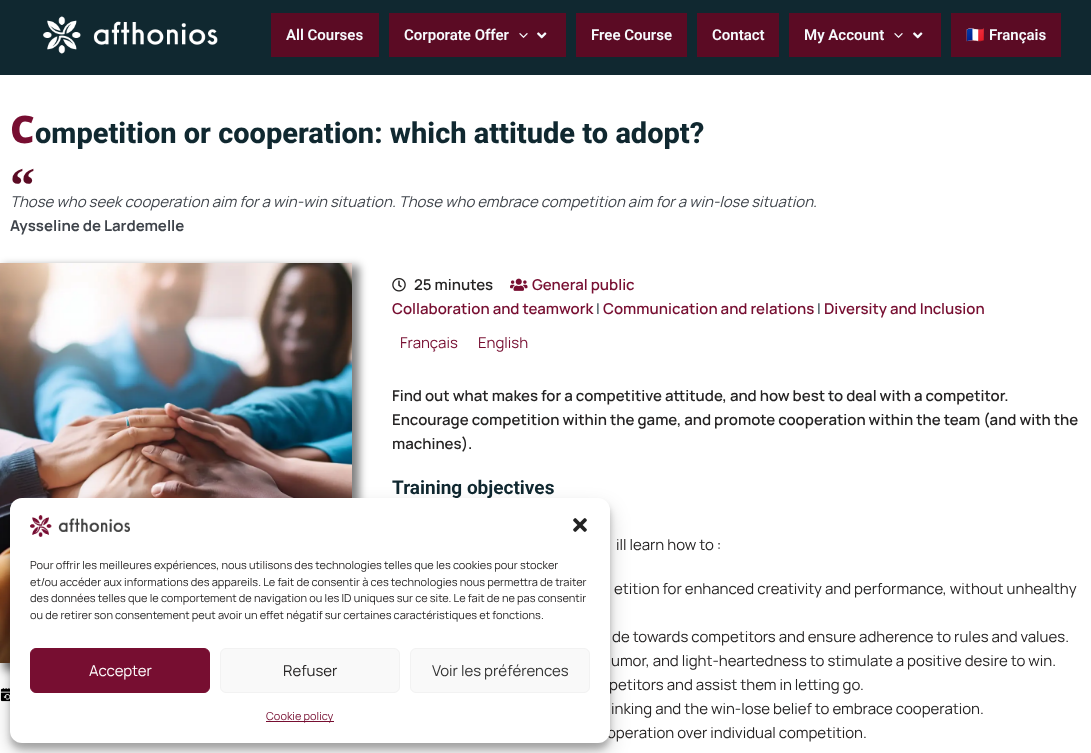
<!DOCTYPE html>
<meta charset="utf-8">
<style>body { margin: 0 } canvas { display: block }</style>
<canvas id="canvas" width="1091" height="753"></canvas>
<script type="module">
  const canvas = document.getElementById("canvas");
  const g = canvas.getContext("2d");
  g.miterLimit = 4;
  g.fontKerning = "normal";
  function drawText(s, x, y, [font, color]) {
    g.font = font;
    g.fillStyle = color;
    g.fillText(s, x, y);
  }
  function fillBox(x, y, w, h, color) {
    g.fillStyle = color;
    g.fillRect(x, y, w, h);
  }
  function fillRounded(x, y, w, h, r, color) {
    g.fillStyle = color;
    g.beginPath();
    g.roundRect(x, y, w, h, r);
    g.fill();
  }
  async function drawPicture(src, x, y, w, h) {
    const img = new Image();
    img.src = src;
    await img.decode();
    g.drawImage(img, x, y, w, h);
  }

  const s1 = ["600 15px Roboto", "#F7FBFE"];
  const s2 = ["bold 15px Noto Color Emoji", "#F7FBFE"];
  const s3 = ["900 38px Noto Sans", "#770E31"];
  const s4 = ["800 29px Roboto", "#102830"];
  const s5 = ["bold 50px Liberation Serif", "#5B0B24"];
  const s6 = ["italic 15px Manrope", "#3F444B"];
  const s7 = ["bold 15px Manrope", "#3F444B"];
  const s8 = ["600 15px Manrope", "#252323"];
  const s9 = ["600 15px Manrope", "#770E31"];
  const s10 = ["15px Manrope", "#102830"];
  const s11 = ["15px Manrope", "#770E31"];
  const s12 = ["bold 19px Roboto", "#102830"];
  const s13 = ["15px Manrope", "#252323"];
  const s14 = ["11px Manrope", "#252323"];
  const s15 = ["15px Manrope", "#FFFFFF"];
  const s16 = ["15px Manrope", "#333333"];
  const s17 = ["11px Manrope", "#770E31"];

  fillBox(0, 0, 1091, 753, "#FFFFFF");
  fillBox(0, 0, 1091, 75, "#102830");
  await drawPicture("pic1.png", 43, 16, 175, 38);
  fillBox(271, 13, 108, 44, "#5B0B24");
  drawText("All Courses", 286, 40, s1);
  fillBox(389, 13, 177, 44, "#5B0B24");
  drawText("Corporate Offer", 404, 40, s1);
  await drawPicture("pic2.png", 519, 33, 9, 5);
  await drawPicture("pic3.png", 537, 32, 10, 7);
  fillBox(576, 13, 111, 44, "#5B0B24");
  drawText("Free Course", 591, 40, s1);
  fillBox(697, 13, 82, 44, "#5B0B24");
  drawText("Contact", 712, 40, s1);
  fillBox(789, 13, 152, 44, "#5B0B24");
  drawText("My Account", 804, 40, s1);
  await drawPicture("pic2.png", 894, 33, 9, 5);
  await drawPicture("pic3.png", 913, 32, 10, 7);
  fillBox(951, 13, 110, 44, "#5B0B24");
  drawText("🇫🇷", 966, 40, s2);
  drawText("Français", 989, 40, s1);
  drawText("C", 10, 143, s3);
  drawText("ompetition or cooperation: which attitude to adopt?", 35, 143, s4);
  drawText("“", 10, 202, s5);
  drawText("Those who seek cooperation aim for a win-win situation. Those who embrace competition aim for a win-lose situation.", 10, 207, s6);
  drawText("Aysseline de Lardemelle", 10, 231, s7);
  g.fillStyle = "rgba(0, 0, 0, 0.5)";
  g.filter = "blur(4px)";
  g.beginPath();
  g.rect(3, 266, 356, 404);
  g.fill();
  g.filter = "none";
  await drawPicture("pic4.png", 0, 263, 352, 400);
  await drawPicture("pic5.png", 0, 688, 10, 14);
  await drawPicture("pic6.png", 392, 278, 14, 14);
  drawText("25 minutes", 414, 290, s8);
  await drawPicture("pic7.png", 510, 278, 18, 13);
  drawText("General public", 532, 290, s9);
  drawText("Collaboration and teamwork", 392, 314, s9);
  drawText("|", 596, 314, s10);
  drawText("Communication and relations", 603, 314, s9);
  drawText("|", 817, 314, s10);
  drawText("Diversity and Inclusion", 824, 314, s9);
  drawText("Français", 400, 348, s11);
  drawText("English", 478, 348, s11);
  drawText("Find out what makes for a competitive attitude, and how best to deal with a competitor.", 392, 401, s8);
  drawText("Encourage competition within the game, and promote cooperation within the team (and with the", 392, 425, s8);
  drawText("machines).", 392, 449, s8);
  drawText("Training objectives", 392, 494, s12);
  drawText("ill learn how to :", 616, 550, s13);
  drawText("etition for enhanced creativity and performance, without unhealthy", 614, 594, s13);
  drawText("de towards competitors and ensure adherence to rules and values.", 612, 642, s13);
  drawText("umor, and light-heartedness to stimulate a positive desire to win.", 611, 666, s13);
  drawText("petitors and assist them in letting go.", 609, 690, s13);
  drawText("inking and the win-lose belief to embrace cooperation.", 611, 714, s13);
  drawText("operation over individual competition.", 607, 738, s13);
  g.fillStyle = "rgba(0, 0, 0, 0.23)";
  g.filter = "blur(3px)";
  g.beginPath();
  g.roundRect(10, 504, 600, 245, 12);
  g.fill();
  g.filter = "none";
  g.fillStyle = "rgba(0, 0, 0, 0.19)";
  g.filter = "blur(10px)";
  g.beginPath();
  g.roundRect(10, 508, 600, 245, 12);
  g.fill();
  g.filter = "none";
  fillRounded(10, 498, 600, 245, 12, "#FFFFFF");
  await drawPicture("pic8.png", 30, 515, 100, 22);
  await drawPicture("pic9.png", 573, 518, 14, 14);
  drawText("Pour offrir les meilleures expériences, nous utilisons des technologies telles que les cookies pour stocker", 30, 569, s14);
  drawText("et/ou accéder aux informations des appareils. Le fait de consentir à ces technologies nous permettra de traiter", 30, 586, s14);
  drawText("des données telles que le comportement de navigation ou les ID uniques sur ce site. Le fait de ne pas consentir", 30, 602, s14);
  drawText("ou de retirer son consentement peut avoir un effet négatif sur certaines caractéristiques et fonctions.", 30, 619, s14);
  g.fillStyle = "#770E31";
  g.beginPath();
  g.roundRect(30.5, 648.5, 179, 44, 5.5);
  g.fill();
  g.strokeStyle = "#770E31";
  g.stroke();
  drawText("Accepter", 89, 676, s15);
  g.fillStyle = "#F9F9F9";
  g.beginPath();
  g.roundRect(220.5, 648.5, 179, 44, 5.5);
  g.fill();
  g.strokeStyle = "#F2F2F2";
  g.stroke();
  drawText("Refuser", 283, 676, s13);
  g.fillStyle = "#F9F9F9";
  g.beginPath();
  g.roundRect(410.5, 648.5, 179, 44, 5.5);
  g.fill();
  g.stroke();
  drawText("Voir les préférences", 432, 676, s16);
  fillBox(266, 721, 68, 1, "#770E31");
  drawText("Cookie policy", 266, 720, s17);
</script>
